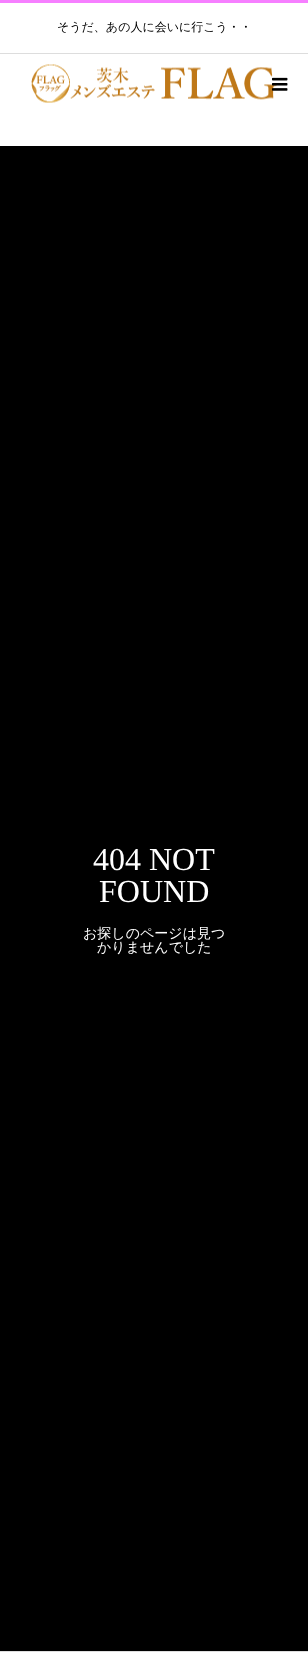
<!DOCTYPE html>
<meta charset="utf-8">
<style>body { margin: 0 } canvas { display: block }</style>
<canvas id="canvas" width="308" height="1656"></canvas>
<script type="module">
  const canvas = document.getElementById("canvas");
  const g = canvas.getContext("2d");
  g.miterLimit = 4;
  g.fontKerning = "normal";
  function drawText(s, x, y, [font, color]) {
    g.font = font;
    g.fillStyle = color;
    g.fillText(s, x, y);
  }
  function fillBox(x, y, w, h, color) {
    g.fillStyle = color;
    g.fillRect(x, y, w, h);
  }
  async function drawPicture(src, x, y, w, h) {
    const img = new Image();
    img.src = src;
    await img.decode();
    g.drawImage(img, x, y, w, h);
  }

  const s1 = ["500 12px WenQuanYi Zen Hei", "#000000"];
  const s2 = ["32px Liberation Serif", "#FFFFFF"];
  const s3 = ["500 14px WenQuanYi Zen Hei", "#FFFFFF"];

  fillBox(0, 0, 308, 1656, "#FFFFFF");
  fillBox(0, 0, 308, 3, "#F67FFF");
  fillBox(0, 53, 308, 1, "#DDDDDD");
  drawText("そうだ、あの人に会いに行こう・・", 57, 31, s1);
  await drawPicture("pic1.png", 31, 64, 246, 39);
  await drawPicture("pic2.png", 272, 77, 16, 14);
  fillBox(0, 146, 308, 1505, "#000000");
  drawText("404 NOT", 93, 870, s2);
  drawText("FOUND", 99, 902, s2);
  drawText("お探しのページは見つ", 83, 938, s3);
  drawText("かりませんでした", 97, 952, s3);
  fillBox(0, 1651, 308, 1, "#DDDDDD");
</script>
